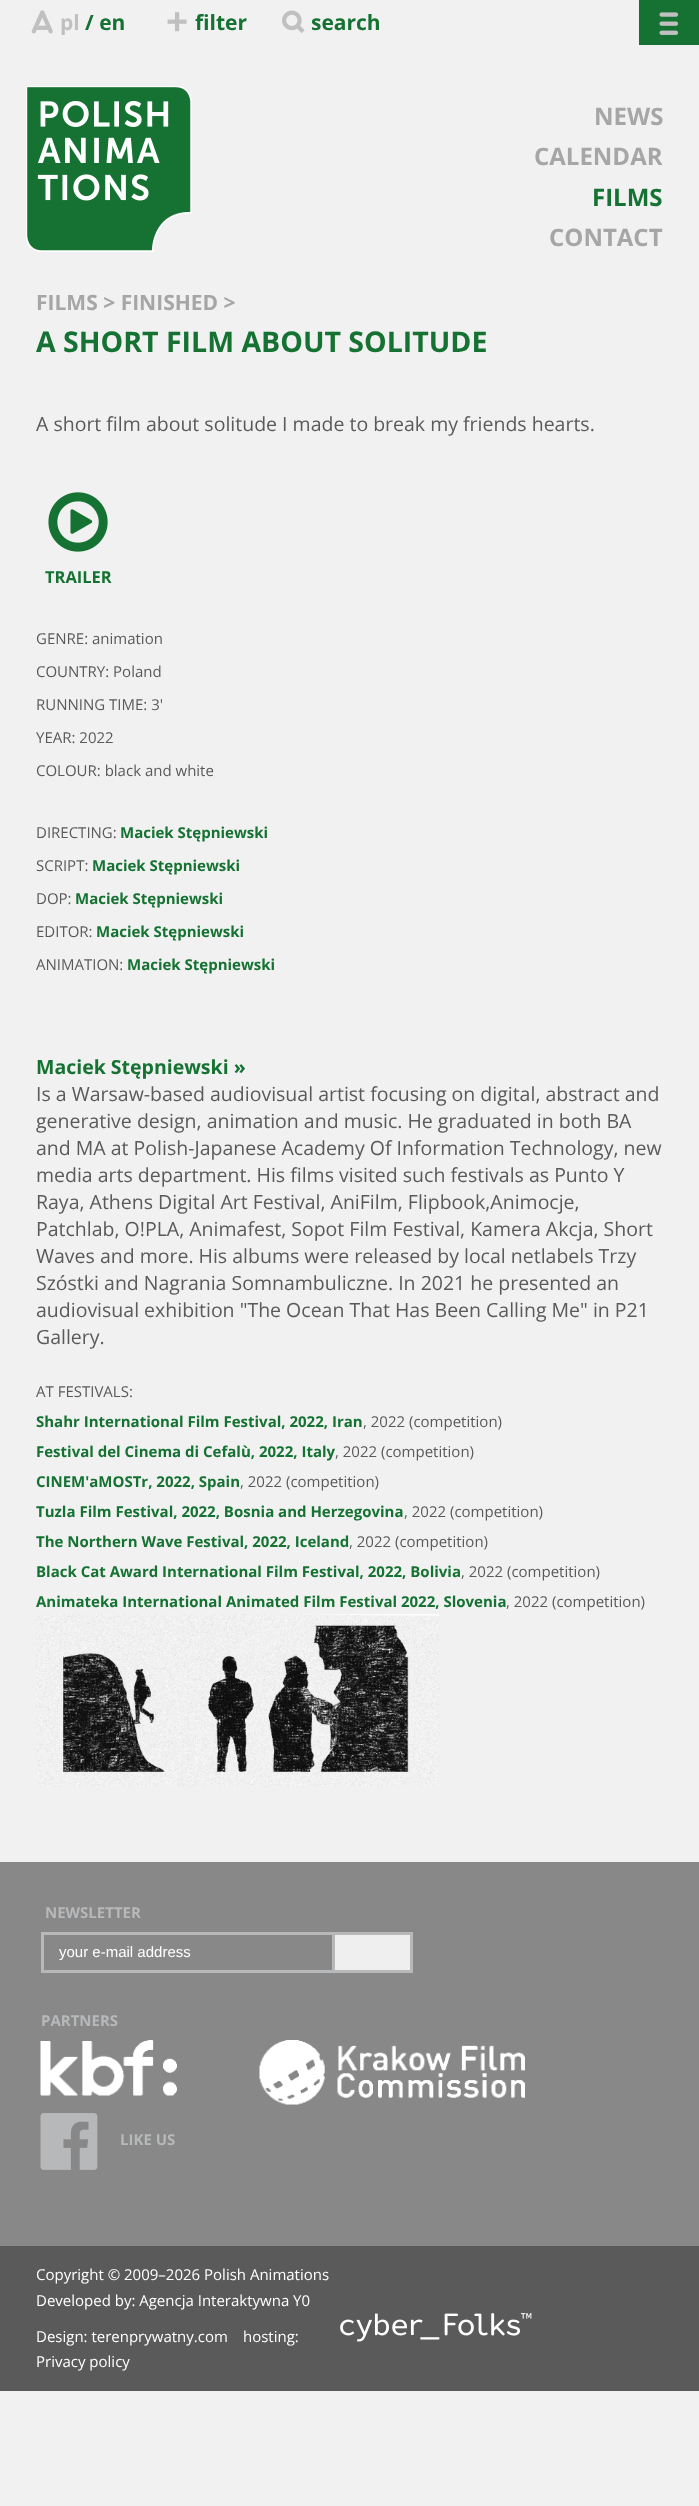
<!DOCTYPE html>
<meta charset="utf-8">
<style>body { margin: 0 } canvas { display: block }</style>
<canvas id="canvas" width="699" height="2506"></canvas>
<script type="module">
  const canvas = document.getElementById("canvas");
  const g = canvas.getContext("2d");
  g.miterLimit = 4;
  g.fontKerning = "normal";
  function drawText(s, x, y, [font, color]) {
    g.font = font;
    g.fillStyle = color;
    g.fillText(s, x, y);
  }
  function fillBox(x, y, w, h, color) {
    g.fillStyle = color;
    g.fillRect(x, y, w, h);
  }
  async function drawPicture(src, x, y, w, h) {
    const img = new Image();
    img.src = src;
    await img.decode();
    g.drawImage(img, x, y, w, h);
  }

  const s1 = ["bold 21px Open Sans", "#C1C0C1"];
  const s2 = ["bold 21px Open Sans", "#157232"];
  const s3 = ["bold 24px Open Sans", "#A6A6A6"];
  const s4 = ["bold 24px Open Sans", "#157232"];
  const s5 = ["bold 21px Open Sans", "#A6A6A6"];
  const s6 = ["bold 28.5px Open Sans", "#157232"];
  const s7 = ["19.5px Open Sans", "#5A5A5A"];
  const s8 = ["bold 16.5px Open Sans", "#157232"];
  const s9 = ["15px Open Sans", "#5A5A5A"];
  const s10 = ["bold 15px Open Sans", "#157232"];
  const s11 = ["bold 19.5px Open Sans", "#157232"];
  const s12 = ["bold 15px Open Sans", "#B7B8BA"];
  const s13 = ["15px Liberation Sans", "#FFFFFF"];
  const s14 = ["15px Open Sans", "#FFFFFF"];

  fillBox(0, 0, 699, 2506, "#F1F1F1");
  await drawPicture("pic1.png", 31, 10, 22, 24);
  drawText("pl", 60, 30, s1);
  drawText("/ en", 85, 30, s2);
  await drawPicture("pic2.png", 167, 12, 20, 20);
  drawText("filter", 195, 30, s2);
  await drawPicture("pic3.png", 282, 10, 23, 23);
  drawText("search", 311, 30, s2);
  fillBox(639, 0, 60, 45, "#157232");
  await drawPicture("pic4.png", 659, 12, 20, 23);
  await drawPicture("pic5.png", 26, 86, 166, 166);
  drawText("NEWS", 594, 125, s3);
  drawText("CALENDAR", 534, 165, s3);
  drawText("FILMS", 592, 206, s4);
  drawText("CONTACT", 549, 246, s3);
  drawText("FILMS > FINISHED >", 36, 310, s5);
  drawText("A SHORT FILM ABOUT SOLITUDE", 36, 352, s6);
  drawText("A short film about solitude I made to break my friends hearts.", 36, 431, s7);
  await drawPicture("pic6.png", 48, 492, 60, 60);
  drawText("TRAILER", 45, 583, s8);
  drawText("GENRE: animation", 36, 644, s9);
  drawText("COUNTRY: Poland", 36, 677, s9);
  drawText("RUNNING TIME: 3'", 36, 710, s9);
  drawText("YEAR: 2022", 36, 743, s9);
  drawText("COLOUR: black and white", 36, 776, s9);
  drawText("DIRECTING:", 36, 838, s9);
  drawText("Maciek Stępniewski", 120, 838, s10);
  drawText("SCRIPT:", 36, 871, s9);
  drawText("Maciek Stępniewski", 92, 871, s10);
  drawText("DOP:", 36, 904, s9);
  drawText("Maciek Stępniewski", 75, 904, s10);
  drawText("EDITOR:", 36, 937, s9);
  drawText("Maciek Stępniewski", 96, 937, s10);
  drawText("ANIMATION:", 36, 970, s9);
  drawText("Maciek Stępniewski", 127, 970, s10);
  drawText("Maciek Stępniewski »", 36, 1074, s11);
  drawText("Is a Warsaw-based audiovisual artist focusing on digital, abstract and", 36, 1101, s7);
  drawText("generative design, animation and music. He graduated in both BA", 36, 1128, s7);
  drawText("and MA at Polish-Japanese Academy Of Information Technology, new", 36, 1155, s7);
  drawText("media arts department. His films visited such festivals as Punto Y", 36, 1182, s7);
  drawText("Raya, Athens Digital Art Festival, AniFilm, Flipbook,Animocje,", 36, 1209, s7);
  drawText("Patchlab, O!PLA, Animafest, Sopot Film Festival, Kamera Akcja, Short", 36, 1236, s7);
  drawText("Waves and more. His albums were released by local netlabels Trzy", 36, 1263, s7);
  drawText("Szóstki and Nagrania Somnambuliczne. In 2021 he presented an", 36, 1290, s7);
  drawText("audiovisual exhibition \"The Ocean That Has Been Calling Me\" in P21", 36, 1317, s7);
  drawText("Gallery.", 36, 1344, s7);
  drawText("AT FESTIVALS:", 36, 1397, s9);
  drawText("Shahr International Film Festival, 2022, Iran", 36, 1427, s10);
  drawText(", 2022 (competition)", 363, 1427, s9);
  drawText("Festival del Cinema di Cefalù, 2022, Italy", 36, 1457, s10);
  drawText(", 2022 (competition)", 335, 1457, s9);
  drawText("CINEM'aMOSTr, 2022, Spain", 36, 1487, s10);
  drawText(", 2022 (competition)", 240, 1487, s9);
  drawText("Tuzla Film Festival, 2022, Bosnia and Herzegovina", 36, 1517, s10);
  drawText(", 2022 (competition)", 404, 1517, s9);
  drawText("The Northern Wave Festival, 2022, Iceland", 36, 1547, s10);
  drawText(", 2022 (competition)", 349, 1547, s9);
  drawText("Black Cat Award International Film Festival, 2022, Bolivia", 36, 1577, s10);
  drawText(", 2022 (competition)", 461, 1577, s9);
  drawText("Animateka International Animated Film Festival 2022, Slovenia", 36, 1607, s10);
  drawText(", 2022 (competition)", 506, 1607, s9);
  await drawPicture("pic7.png", 36, 1614, 404, 173);
  fillBox(0, 1862, 699, 384, "#888888");
  drawText("NEWSLETTER", 45, 1918, s12);
  fillBox(41, 1932, 291, 3, "#B7B8BA");
  fillBox(41, 1970, 291, 3, "#B7B8BA");
  fillBox(41, 1932, 3, 41, "#B7B8BA");
  drawText("your e-mail address", 59, 1957, s13);
  g.fillStyle = "#EFEFEF";
  g.beginPath();
  g.rect(333.5, 1933.5, 78, 38);
  g.fill();
  g.strokeStyle = "#B7B8BA";
  g.lineWidth = 3;
  g.stroke();
  drawText("PARTNERS", 41, 2026, s12);
  await drawPicture("pic8.png", 40, 2040, 137, 56);
  await drawPicture("pic9.png", 259, 2040, 266, 65);
  await drawPicture("pic10.png", 40, 2113, 58, 57);
  drawText("LIKE US", 120, 2145, s12);
  fillBox(0, 2246, 699, 145, "#5A5A5A");
  drawText("Copyright © 2009–2026 Polish Animations", 36, 2280, s14);
  drawText("Developed by: Agencja Interaktywna Y0", 36, 2306, s14);
  drawText("Design: terenprywatny.com", 36, 2342, s14);
  drawText("hosting:", 243, 2342, s14);
  await drawPicture("pic11.png", 340, 2313, 192, 29);
  drawText("Privacy policy", 36, 2367, s14);
</script>
